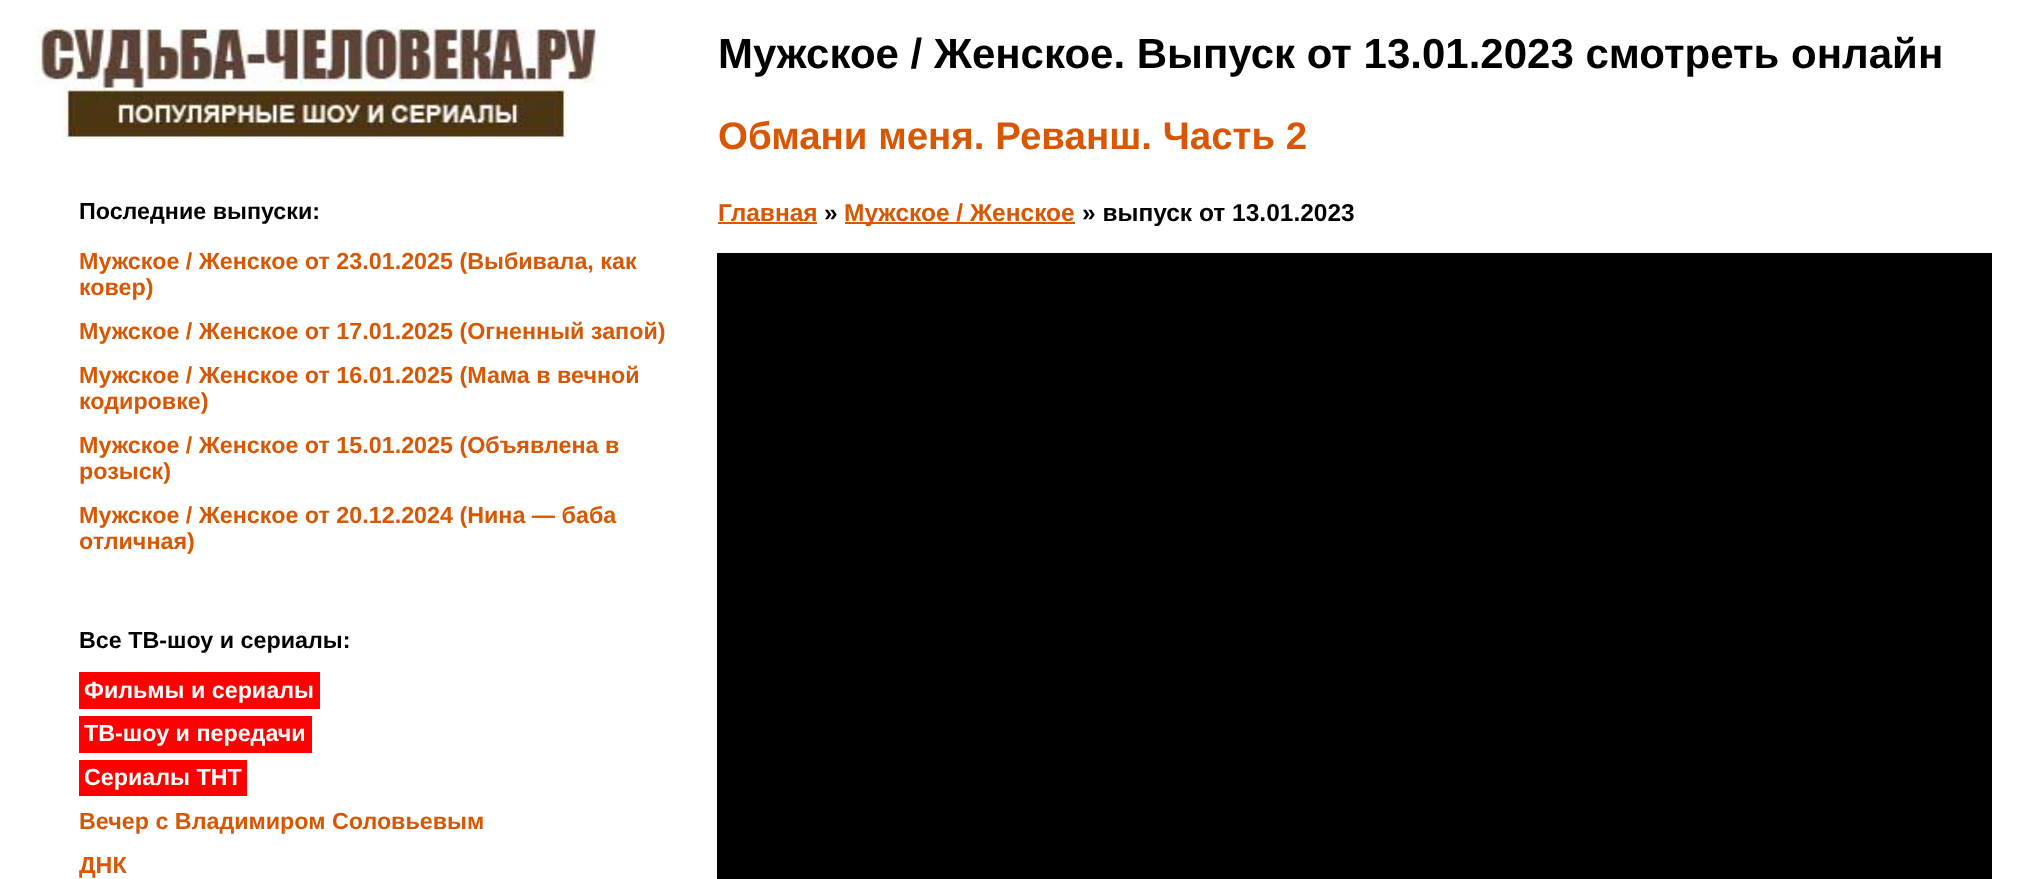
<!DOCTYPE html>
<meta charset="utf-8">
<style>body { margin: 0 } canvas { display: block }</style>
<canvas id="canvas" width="2036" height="879"></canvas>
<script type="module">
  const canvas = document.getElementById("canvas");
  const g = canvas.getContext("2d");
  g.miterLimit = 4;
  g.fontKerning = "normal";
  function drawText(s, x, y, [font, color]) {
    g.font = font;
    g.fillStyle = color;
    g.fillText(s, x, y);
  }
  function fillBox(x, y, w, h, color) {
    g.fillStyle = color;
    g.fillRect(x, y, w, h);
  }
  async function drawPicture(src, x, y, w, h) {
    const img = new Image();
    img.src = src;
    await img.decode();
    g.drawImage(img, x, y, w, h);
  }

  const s1 = ["bold 42px Liberation Sans", "#000000"];
  const s2 = ["bold 38.5px Liberation Sans", "#D85704"];
  const s3 = ["bold 24.5px Liberation Sans", "#D85704"];
  const s4 = ["bold 24.5px Liberation Sans", "#000000"];
  const s5 = ["bold 23.3px Liberation Sans", "#000000"];
  const s6 = ["bold 23.3px Liberation Sans", "#D85704"];
  const s7 = ["bold 23.3px Liberation Sans", "#FFFFFF"];

  fillBox(0, 0, 2036, 879, "#FFFFFF");
  await drawPicture("pic1.png", 35, 26, 561, 115);
  drawText("Мужское / Женское. Выпуск от 13.01.2023 смотреть онлайн", 718, 68, s1);
  drawText("Обмани меня. Реванш. Часть 2", 718, 149, s2);
  drawText("Главная", 718, 221, s3);
  fillBox(718, 222, 99, 2, "#D85704");
  drawText("»", 824, 221, s4);
  fillBox(845, 222, 230, 2, "#D85704");
  drawText("Мужское / Женское", 844, 221, s3);
  drawText("» выпуск от 13.01.2023", 1082, 221, s4);
  fillBox(717, 253, 1275, 626, "#000000");
  drawText("Последние выпуски:", 79, 219, s5);
  drawText("Мужское / Женское от 23.01.2025 (Выбивала, как", 79, 269, s6);
  drawText("ковер)", 79, 295, s6);
  drawText("Мужское / Женское от 17.01.2025 (Огненный запой)", 79, 339, s6);
  drawText("Мужское / Женское от 16.01.2025 (Мама в вечной", 79, 383, s6);
  drawText("кодировке)", 79, 409, s6);
  drawText("Мужское / Женское от 15.01.2025 (Объявлена в", 79, 453, s6);
  drawText("розыск)", 79, 479, s6);
  drawText("Мужское / Женское от 20.12.2024 (Нина — баба", 79, 523, s6);
  drawText("отличная)", 79, 549, s6);
  drawText("Все ТВ-шоу и сериалы:", 79, 648, s5);
  fillBox(79, 672, 241, 37, "#FF0000");
  drawText("Фильмы и сериалы", 84, 698, s7);
  fillBox(79, 716, 233, 37, "#FF0000");
  drawText("ТВ-шоу и передачи", 84, 741, s7);
  fillBox(79, 760, 168, 36, "#FF0000");
  drawText("Сериалы ТНТ", 84, 785, s7);
  drawText("Вечер с Владимиром Соловьевым", 79, 829, s6);
  drawText("ДНК", 79, 873, s6);
</script>
